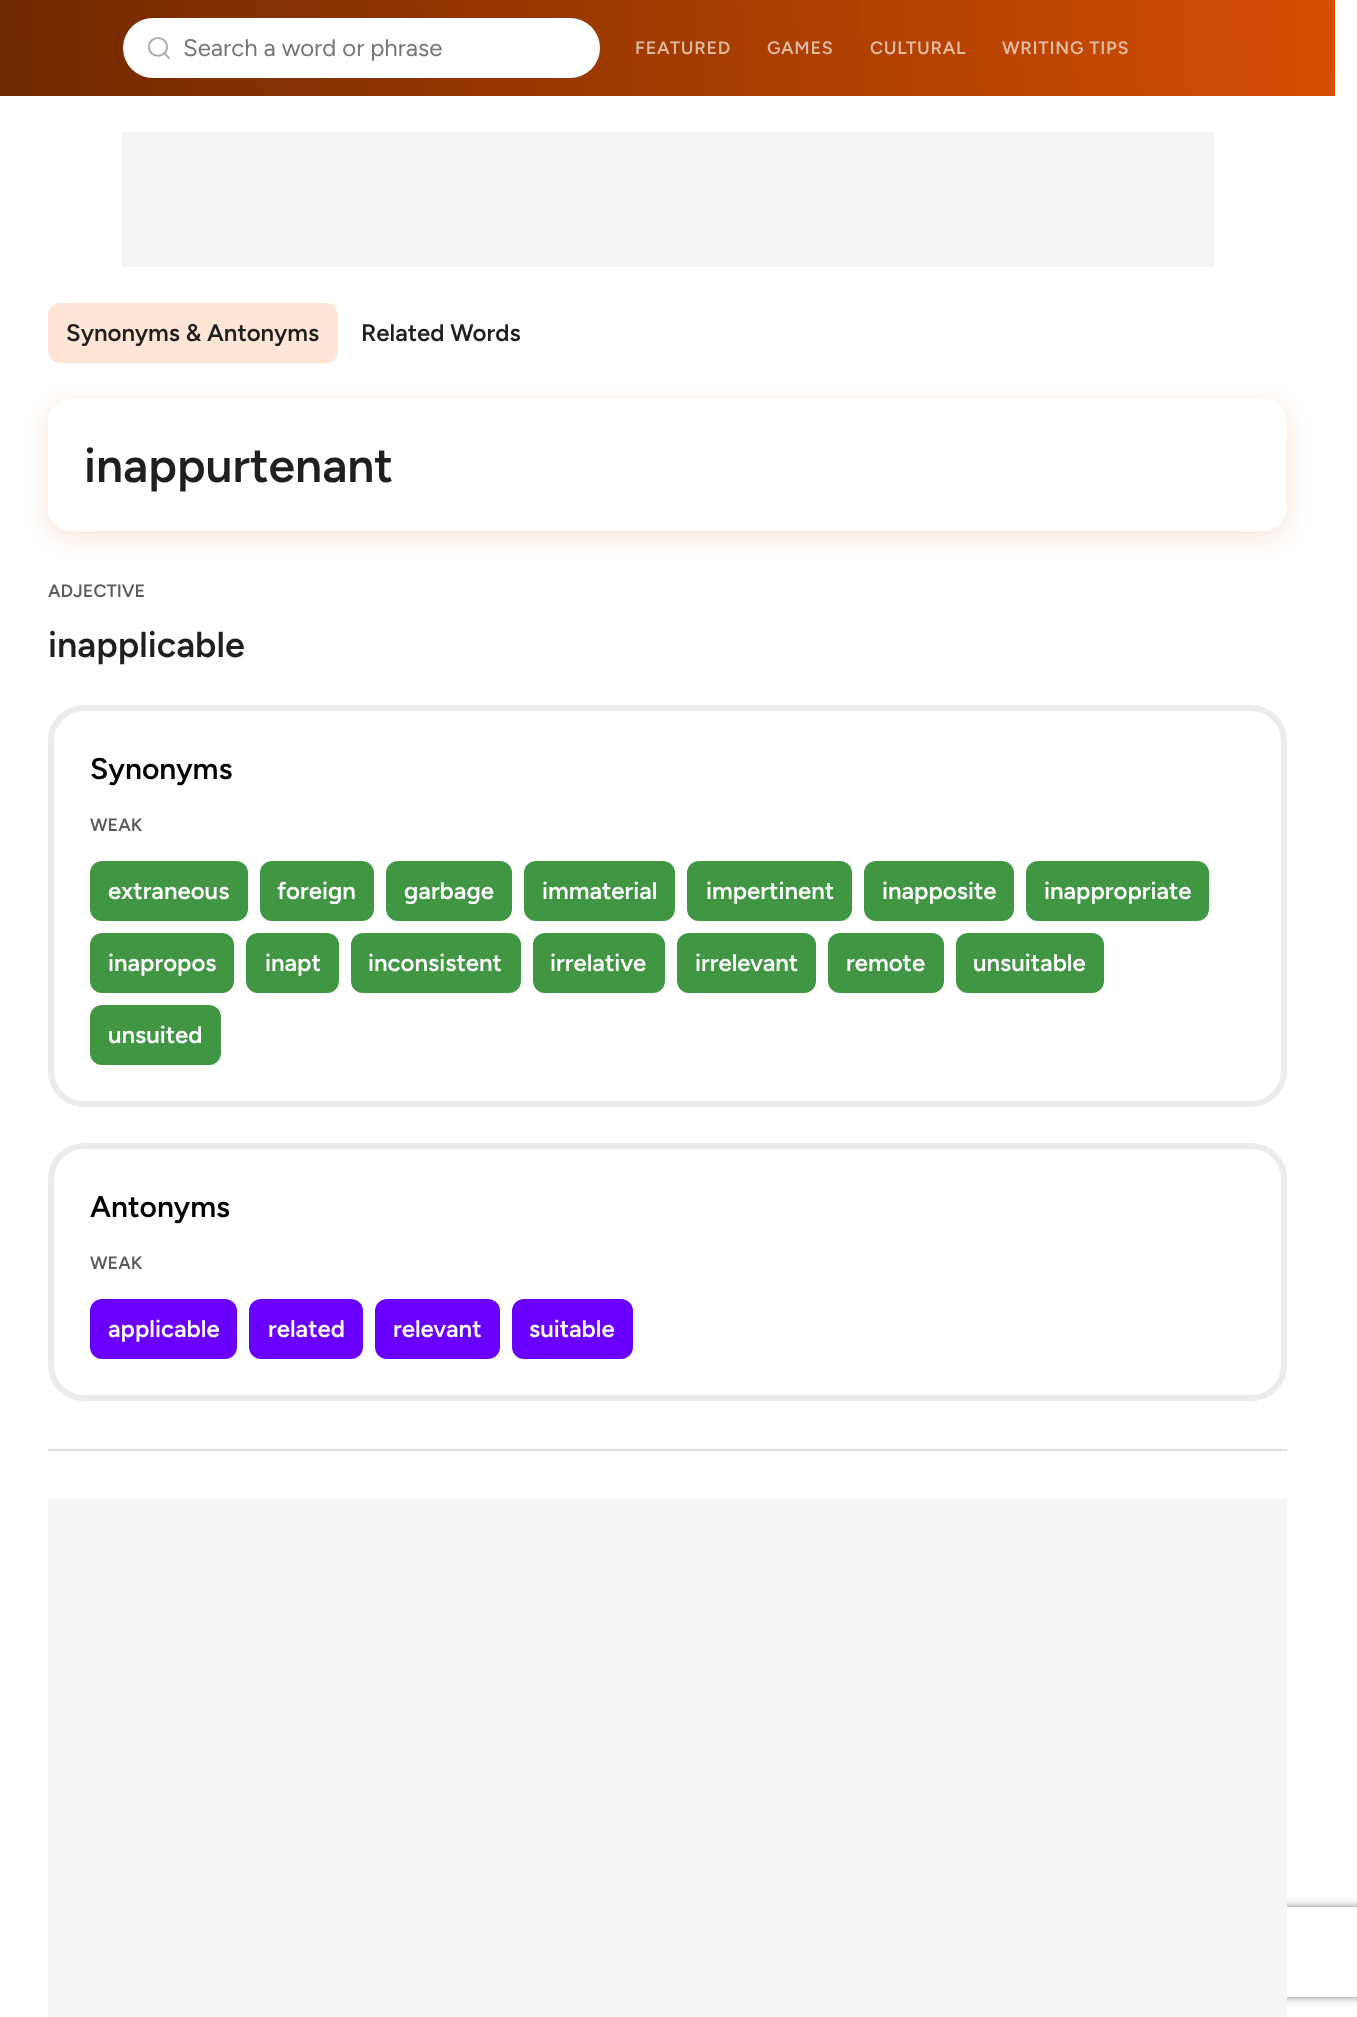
<!DOCTYPE html>
<meta charset="utf-8">
<style>body { margin: 0 } canvas { display: block }</style>
<canvas id="canvas" width="1357" height="2017"></canvas>
<script type="module">
  const canvas = document.getElementById("canvas");
  const g = canvas.getContext("2d");
  g.miterLimit = 4;
  g.fontKerning = "normal";
  function drawText(s, x, y, [font, color]) {
    g.font = font;
    g.fillStyle = color;
    g.fillText(s, x, y);
  }
  function fillBox(x, y, w, h, color) {
    g.fillStyle = color;
    g.fillRect(x, y, w, h);
  }
  function fillRounded(x, y, w, h, r, color) {
    g.fillStyle = color;
    g.beginPath();
    g.roundRect(x, y, w, h, r);
    g.fill();
  }
  let gradient;

  const s1 = ["24px Figtree", "#757575"];
  const s2 = ["600 18px Figtree", "#DEB9A4"];
  const s3 = ["600 18px Figtree", "#E4BBA4"];
  const s4 = ["600 24px Figtree", "#1F1F1F"];
  const s5 = ["600 48px Figtree", "#1F1F1F"];
  const s6 = ["600 18px Figtree", "#5C5C5C"];
  const s7 = ["600 36px Figtree", "#1F1F1F"];
  const s8 = ["600 30px Figtree", "#000000"];
  const s9 = ["600 24px Figtree", "#FFFFFF"];

  fillBox(0, 0, 1357, 2017, "#FFFFFF");
  gradient = g.createLinearGradient(0.1, 97, 1335, -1);
  gradient.addColorStop(0, "#702900");
  gradient.addColorStop(1, "#D44E02");
  g.fillStyle = gradient;
  g.fillRect(0, 0, 1335, 96);
  fillRounded(123, 18, 477, 60, 30, "#FFFFFF");
  g.beginPath();
  g.moveTo(169, 58);
  g.lineTo(164, 53);
  g.moveTo(167, 47);
  g.bezierCurveTo(167, 58.5, 149, 58.5, 149, 47);
  g.bezierCurveTo(149, 35, 167, 35, 167, 47);
  g.closePath();
  g.strokeStyle = "#ADADAD";
  g.lineWidth = 2;
  g.lineCap = "round";
  g.lineJoin = "round";
  g.stroke();
  drawText("Search a word or phrase", 183, 56, s1);
  g.letterSpacing = "0.75px";
  drawText("FEATURED", 635, 54, s2);
  drawText("GAMES", 767, 54, s2);
  drawText("CULTURAL", 870, 54, s3);
  drawText("WRITING TIPS", 1002, 54, s3);
  fillBox(122, 132, 1092, 135, "#F5F5F5");
  fillRounded(48, 303, 290, 60, 12, "#FFE5D6");
  g.letterSpacing = "0px";
  drawText("Synonyms & Antonyms", 66, 341, s4);
  drawText("Related Words", 361, 341, s4);
  g.save();
  g.beginPath();
  g.moveTo(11, 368);
  g.lineTo(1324, 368);
  g.lineTo(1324, 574);
  g.lineTo(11, 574);
  g.closePath();
  g.moveTo(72, 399);
  g.lineTo(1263, 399);
  g.bezierCurveTo(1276.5, 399, 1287, 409.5, 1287, 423);
  g.lineTo(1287, 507);
  g.bezierCurveTo(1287, 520.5, 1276.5, 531, 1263, 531);
  g.lineTo(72, 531);
  g.bezierCurveTo(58.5, 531, 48, 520.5, 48, 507);
  g.lineTo(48, 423);
  g.bezierCurveTo(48, 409.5, 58.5, 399, 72, 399);
  g.closePath();
  g.clip("evenodd");
  g.fillStyle = "rgba(212, 78, 2, 0.16)";
  g.filter = "blur(12px)";
  g.beginPath();
  g.roundRect(48, 405, 1239, 132, 24);
  g.fill();
  g.filter = "none";
  g.restore();
  drawText("inappurtenant", 84, 482, s5);
  drawText("ADJECTIVE", 48, 597, s6);
  drawText("inapplicable", 48, 657, s7);
  g.beginPath();
  g.roundRect(51, 708, 1233, 396, 33);
  g.strokeStyle = "#EBEBEB";
  g.lineWidth = 6;
  g.lineJoin = "miter";
  g.stroke();
  drawText("Synonyms", 90, 779, s8);
  drawText("WEAK", 90, 831, s6);
  fillRounded(90, 861, 158, 60, 12, "#419644");
  drawText("extraneous", 108, 899, s9);
  fillRounded(260, 861, 114, 60, 12, "#419644");
  drawText("foreign", 277, 899, s9);
  fillRounded(386, 861, 126, 60, 12, "#419644");
  drawText("garbage", 404, 899, s9);
  fillRounded(524, 861, 151, 60, 12, "#419644");
  drawText("immaterial", 542, 899, s9);
  fillRounded(687, 861, 165, 60, 12, "#419644");
  drawText("impertinent", 706, 899, s9);
  fillRounded(864, 861, 150, 60, 12, "#419644");
  drawText("inapposite", 882, 899, s9);
  fillRounded(1026, 861, 183, 60, 12, "#419644");
  drawText("inappropriate", 1044, 899, s9);
  fillRounded(90, 933, 144, 60, 12, "#419644");
  drawText("inapropos", 108, 971, s9);
  fillRounded(246, 933, 93, 60, 12, "#419644");
  drawText("inapt", 265, 971, s9);
  fillRounded(351, 933, 170, 60, 12, "#419644");
  drawText("inconsistent", 368, 971, s9);
  fillRounded(533, 933, 132, 60, 12, "#419644");
  drawText("irrelative", 550, 971, s9);
  fillRounded(677, 933, 139, 60, 12, "#419644");
  drawText("irrelevant", 695, 971, s9);
  fillRounded(828, 933, 116, 60, 12, "#419644");
  drawText("remote", 846, 971, s9);
  fillRounded(956, 933, 148, 60, 12, "#419644");
  drawText("unsuitable", 973, 971, s9);
  fillRounded(90, 1005, 131, 60, 12, "#419644");
  drawText("unsuited", 108, 1043, s9);
  g.beginPath();
  g.roundRect(51, 1146, 1233, 252, 33);
  g.stroke();
  drawText("Antonyms", 90, 1217, s8);
  drawText("WEAK", 90, 1269, s6);
  fillRounded(90, 1299, 147, 60, 12, "#6A00FF");
  drawText("applicable", 108, 1337, s9);
  fillRounded(249, 1299, 114, 60, 12, "#6A00FF");
  drawText("related", 268, 1337, s9);
  fillRounded(375, 1299, 125, 60, 12, "#6A00FF");
  drawText("relevant", 393, 1337, s9);
  fillRounded(512, 1299, 121, 60, 12, "#6A00FF");
  drawText("suitable", 529, 1337, s9);
  fillBox(48, 1449, 1239, 2, "#E0E0E0");
  g.save();
  g.beginPath();
  g.moveTo(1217, 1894);
  g.lineTo(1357, 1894);
  g.lineTo(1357, 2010);
  g.lineTo(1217, 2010);
  g.closePath();
  g.moveTo(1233, 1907);
  g.lineTo(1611, 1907);
  g.bezierCurveTo(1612.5, 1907, 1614, 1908.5, 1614, 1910);
  g.lineTo(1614, 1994);
  g.bezierCurveTo(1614, 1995.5, 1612.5, 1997, 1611, 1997);
  g.lineTo(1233, 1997);
  g.bezierCurveTo(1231.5, 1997, 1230, 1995.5, 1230, 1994);
  g.lineTo(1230, 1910);
  g.bezierCurveTo(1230, 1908.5, 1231.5, 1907, 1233, 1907);
  g.closePath();
  g.clip("evenodd");
  g.fillStyle = "#808080";
  g.filter = "blur(4px)";
  g.beginPath();
  g.roundRect(1230, 1907, 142, 90, 3);
  g.fill();
  g.filter = "none";
  g.restore();
  fillBox(48, 1499, 1239, 518, "#F5F5F5");
</script>
